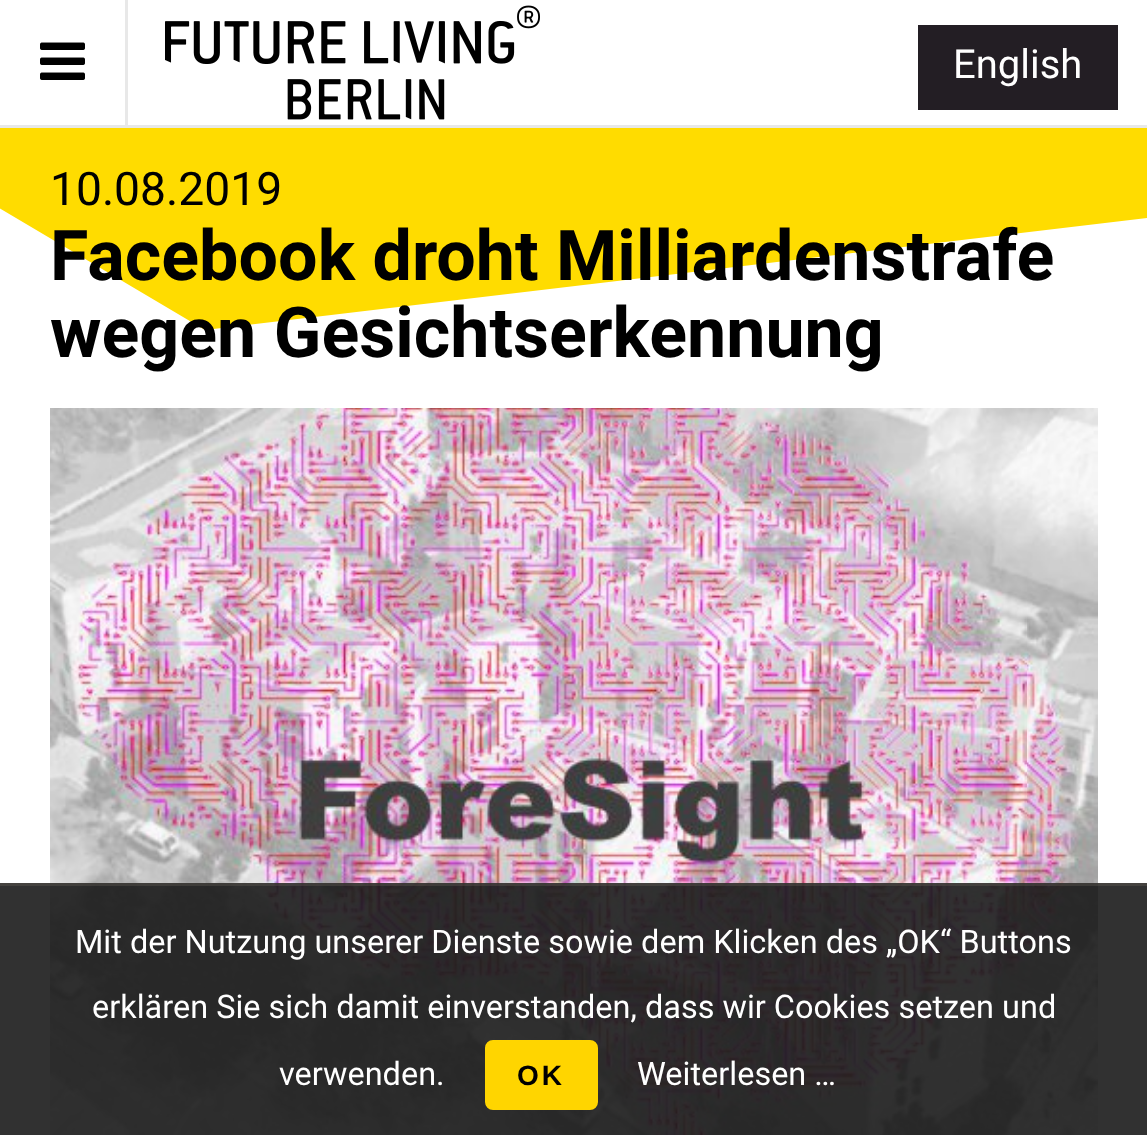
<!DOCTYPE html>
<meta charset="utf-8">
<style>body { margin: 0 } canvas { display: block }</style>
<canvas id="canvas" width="1147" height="1135"></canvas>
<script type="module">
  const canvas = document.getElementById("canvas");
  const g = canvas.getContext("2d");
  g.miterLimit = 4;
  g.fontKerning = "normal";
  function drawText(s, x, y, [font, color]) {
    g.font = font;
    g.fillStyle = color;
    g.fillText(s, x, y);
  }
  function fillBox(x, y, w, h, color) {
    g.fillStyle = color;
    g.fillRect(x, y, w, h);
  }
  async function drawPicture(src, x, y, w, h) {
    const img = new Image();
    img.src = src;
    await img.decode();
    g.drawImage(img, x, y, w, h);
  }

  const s1 = ["40px Roboto", "#FFFFFF"];
  const s2 = ["46.25px Roboto", "#000000"];
  const s3 = ["bold 70px Roboto", "#000000"];
  const s4 = ["32.5px Roboto", "#FFFFFF"];
  const s5 = ["bold 28px Liberation Sans", "#000000"];

  fillBox(0, 0, 1147, 1135, "#FFFFFF");
  g.fillStyle = "#FFDC00";
  g.beginPath();
  g.moveTo(-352, 0);
  g.lineTo(205, 330);
  g.lineTo(1147, 218);
  g.lineTo(1147, 0);
  g.closePath();
  g.fill();
  fillBox(0, 0, 1147, 125, "#FFFFFF");
  fillBox(0, 125, 1147, 3, "#E8E8E8");
  fillBox(125, 0, 3, 125, "#E8E8E8");
  await drawPicture("pic1.png", 40, 42, 45, 38);
  await drawPicture("pic2.png", 165, 5, 375, 115);
  fillBox(918, 25, 200, 85, "#231E24");
  drawText("English", 953, 78, s1);
  drawText("10.08.2019", 50, 205, s2);
  drawText("Facebook droht Milliardenstrafe", 50, 280, s3);
  drawText("wegen Gesichtserkennung", 50, 357, s3);
  await drawPicture("pic3.png", 50, 408, 1048, 727);
  fillBox(0, 883, 1147, 252, "rgba(27, 27, 27, 0.9)");
  fillBox(0, 883, 1147, 3, "rgba(137, 127, 113, 0.22)");
  drawText("Mit der Nutzung unserer Dienste sowie dem Klicken des „OK“ Buttons", 75, 953, s4);
  drawText("erklären Sie sich damit einverstanden, dass wir Cookies setzen und", 92, 1018, s4);
  drawText("verwenden.", 279, 1085, s4);
  g.fillStyle = "#FFD500";
  g.beginPath();
  g.roundRect(486.5, 1041.5, 110, 67, 6.5);
  g.fill();
  g.strokeStyle = "#FFD500";
  g.lineWidth = 3;
  g.stroke();
  g.letterSpacing = "3px";
  drawText("OK", 517, 1085, s5);
  g.letterSpacing = "0px";
  drawText("Weiterlesen …", 637, 1085, s4);
</script>
